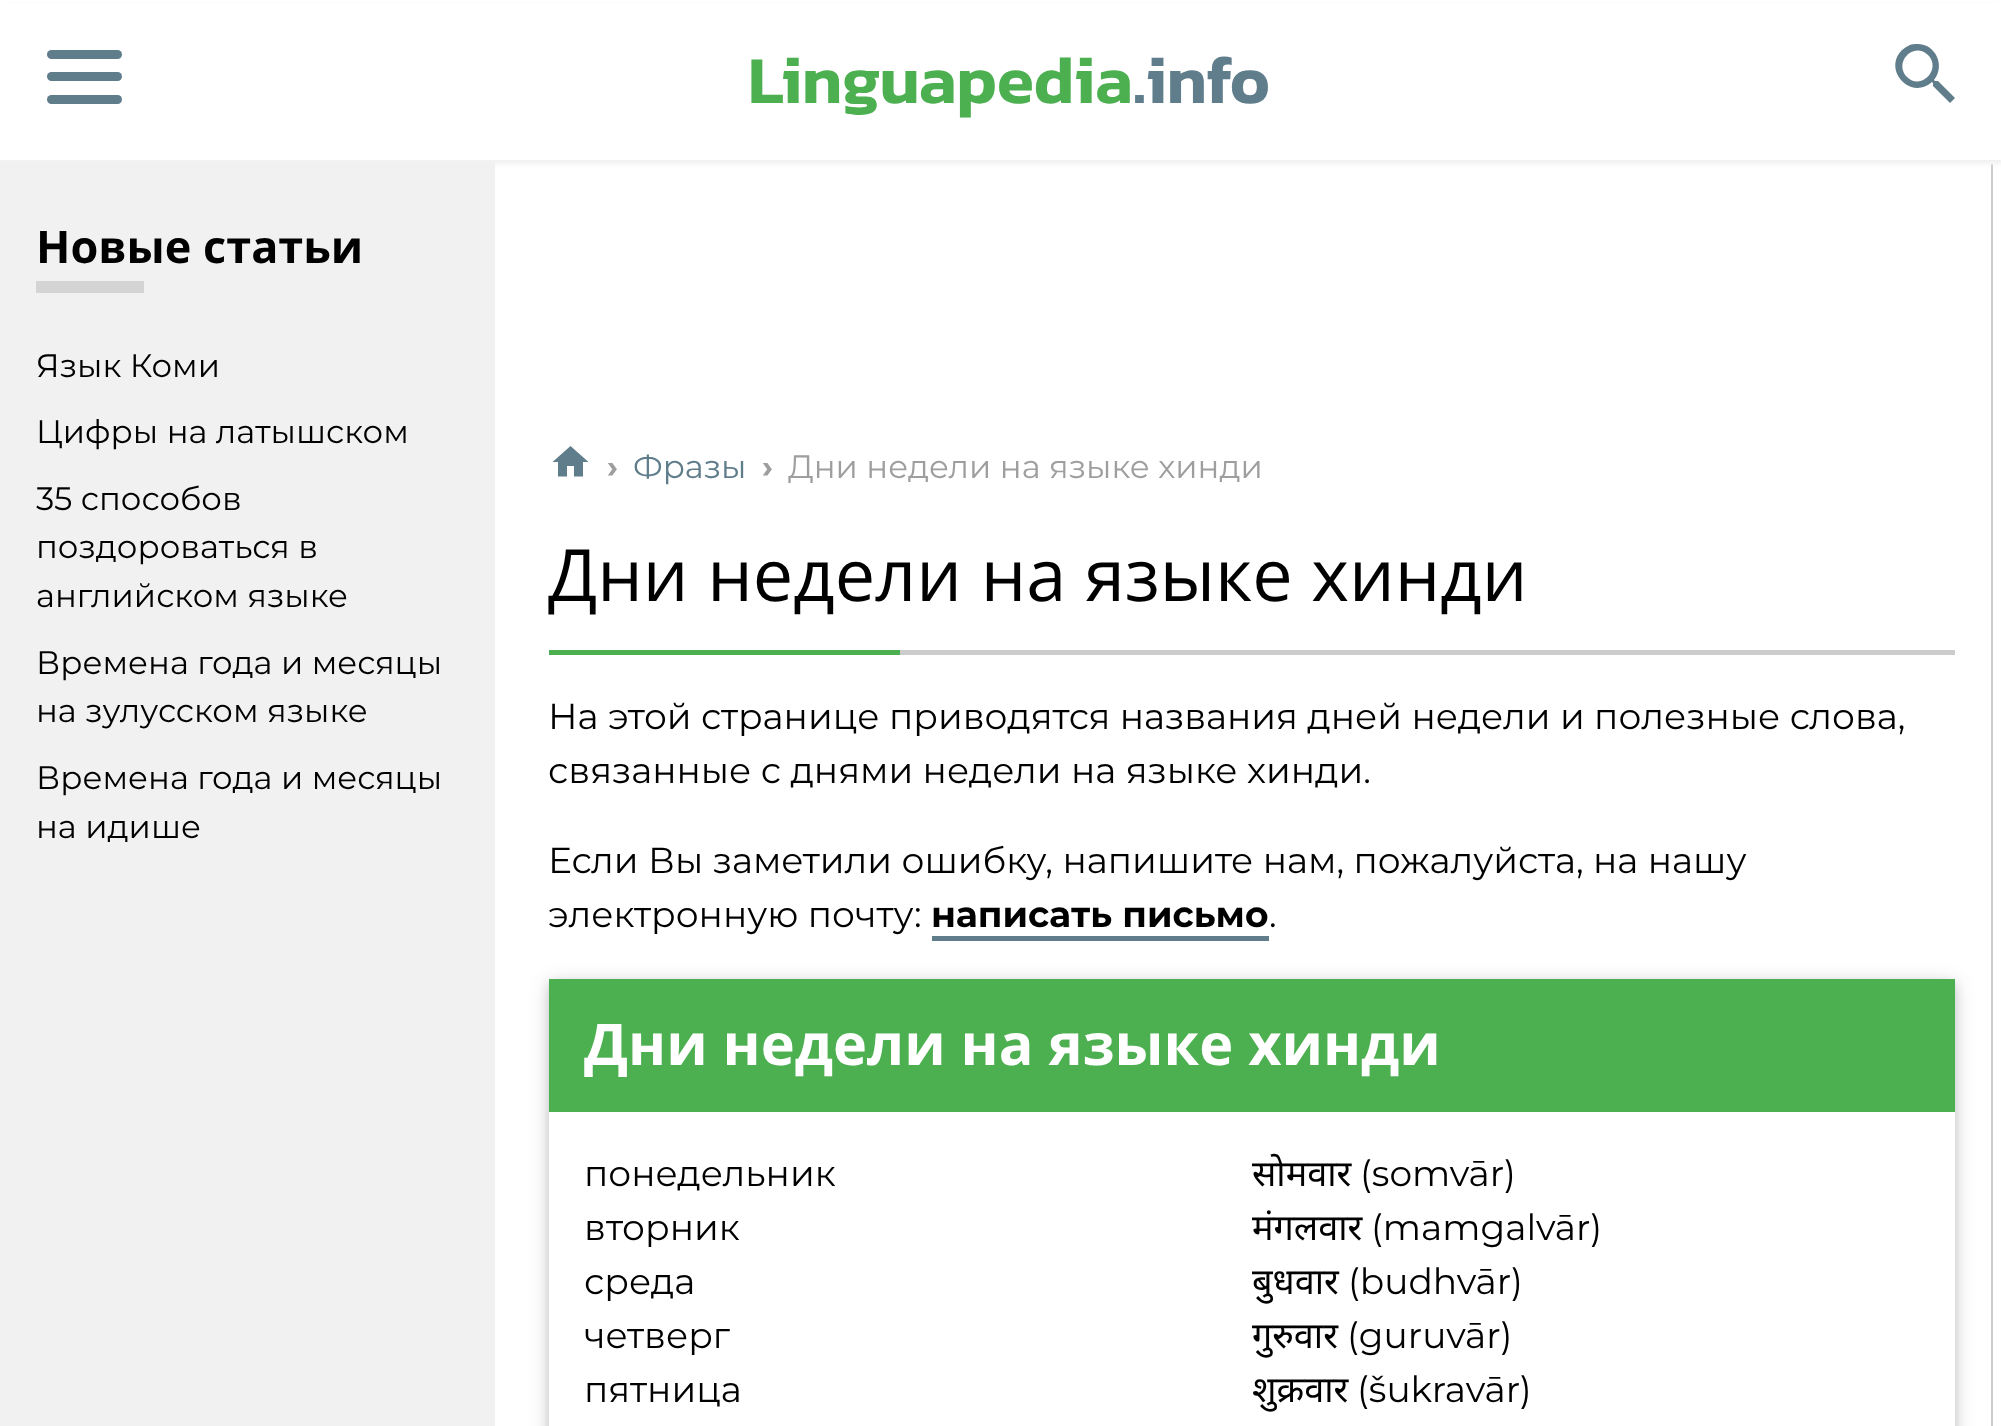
<!DOCTYPE html>
<meta charset="utf-8">
<style>body { margin: 0 } canvas { display: block }</style>
<canvas id="canvas" width="2001" height="1426"></canvas>
<script type="module">
  const canvas = document.getElementById("canvas");
  const g = canvas.getContext("2d");
  g.miterLimit = 4;
  g.fontKerning = "normal";
  function drawText(s, x, y, [font, color]) {
    g.font = font;
    g.fillStyle = color;
    g.fillText(s, x, y);
  }
  function fillBox(x, y, w, h, color) {
    g.fillStyle = color;
    g.fillRect(x, y, w, h);
  }
  function fillRounded(x, y, w, h, r, color) {
    g.fillStyle = color;
    g.beginPath();
    g.roundRect(x, y, w, h, r);
    g.fill();
  }

  const s1 = ["600 67.5px Kanit", "#4CAF50"];
  const s2 = ["600 67.5px Kanit", "#607D8B"];
  const s3 = ["bold 45px Open Sans", "#000000"];
  const s4 = ["32.4px Montserrat", "#000000"];
  const s5 = ["bold 32.4px Montserrat", "#9E9E9E"];
  const s6 = ["32.4px Montserrat", "#607D8B"];
  const s7 = ["32.4px Montserrat", "#9E9E9E"];
  const s8 = ["72px Open Sans", "#000000"];
  const s9 = ["36px Montserrat", "#000000"];
  const s10 = ["bold 36px Montserrat", "#000000"];
  const s11 = ["bold 57.6px Open Sans", "#FFFFFF"];
  const s12 = ["36px Noto Sans", "#000000"];

  fillBox(0, 0, 2001, 1426, "#FFFFFF");
  fillBox(0, 160, 495, 1266, "#F1F1F1");
  fillBox(1991, 164, 2, 1262, "#CCCCCC");
  g.fillStyle = "#F1F1F1";
  g.filter = "blur(2px)";
  g.beginPath();
  g.rect(0, 5, 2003, 159);
  g.fill();
  g.filter = "none";
  fillBox(0, 3, 2001, 157, "#FFFFFF");
  fillRounded(47, 72, 75, 9, 4.5, "#607D8B");
  fillRounded(47, 50, 75, 9, 4.5, "#607D8B");
  fillRounded(47, 95, 75, 9, 4.5, "#607D8B");
  drawText("Linguapedia", 748, 103, s1);
  drawText(".info", 1133, 103, s2);
  g.beginPath();
  g.moveTo(1907, 77);
  g.bezierCurveTo(1921, 91, 1942, 69, 1928, 55);
  g.bezierCurveTo(1914, 41, 1893, 62, 1907, 77);
  g.closePath();
  g.moveTo(1938, 81);
  g.lineTo(1955, 98);
  g.lineTo(1950, 103);
  g.lineTo(1933, 86);
  g.lineTo(1933, 83);
  g.lineTo(1932, 82);
  g.bezierCurveTo(1911, 101, 1882, 70, 1902, 50);
  g.bezierCurveTo(1906, 47, 1910, 44, 1915, 44);
  g.bezierCurveTo(1935, 42, 1946, 65, 1934, 80);
  g.lineTo(1935, 81);
  g.closePath();
  g.fill();
  drawText("Новые статьи", 36, 263, s3);
  fillBox(36, 281, 108, 12, "#D4D4D4");
  drawText("Язык Коми", 36, 377, s4);
  drawText("Цифры на латышском", 36, 443, s4);
  drawText("35 способов", 36, 510, s4);
  drawText("поздороваться в", 36, 558, s4);
  drawText("английском языке", 36, 607, s4);
  drawText("Времена года и месяцы", 36, 674, s4);
  drawText("на зулусском языке", 36, 722, s4);
  drawText("Времена года и месяцы", 36, 789, s4);
  drawText("на идише", 36, 838, s4);
  g.fillStyle = "#607D8B";
  g.beginPath();
  g.moveTo(567, 476.5);
  g.lineTo(558, 476.5);
  g.lineTo(558, 462);
  g.lineTo(552.5, 462);
  g.lineTo(570.5, 446);
  g.lineTo(588.5, 462);
  g.lineTo(583, 462);
  g.lineTo(583, 476.5);
  g.lineTo(574, 476.5);
  g.lineTo(574, 466);
  g.lineTo(567, 466);
  g.closePath();
  g.fill();
  drawText("›", 607, 478, s5);
  drawText("Фразы", 633, 478, s6);
  drawText("›", 762, 478, s5);
  drawText("Дни недели на языке хинди", 788, 478, s7);
  drawText("Дни недели на языке хинди", 548, 601, s8);
  fillBox(900, 650, 1055, 5, "#CCCCCC");
  fillBox(549, 650, 351, 5, "#4CAF50");
  drawText("На этой странице приводятся названия дней недели и полезные слова,", 548, 729, s9);
  drawText("связанные с днями недели на языке хинди.", 548, 783, s9);
  drawText("Если Вы заметили ошибку, напишите нам, пожалуйста, на нашу", 548, 873, s9);
  drawText("электронную почту:", 548, 927, s9);
  drawText("написать письмо", 931, 927, s10);
  fillBox(932, 936, 337, 5, "#607D8B");
  drawText(".", 1269, 927, s9);
  g.save();
  g.beginPath();
  g.moveTo(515, 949);
  g.lineTo(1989, 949);
  g.lineTo(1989, 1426);
  g.lineTo(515, 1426);
  g.closePath();
  g.moveTo(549, 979);
  g.lineTo(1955, 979);
  g.lineTo(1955, 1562);
  g.lineTo(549, 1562);
  g.closePath();
  g.clip("evenodd");
  g.fillStyle = "rgba(0, 0, 0, 0.12)";
  g.filter = "blur(11px)";
  g.beginPath();
  g.rect(549, 983, 1406, 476);
  g.fill();
  g.filter = "none";
  g.restore();
  g.save();
  g.beginPath();
  g.moveTo(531, 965);
  g.lineTo(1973, 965);
  g.lineTo(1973, 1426);
  g.lineTo(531, 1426);
  g.closePath();
  g.moveTo(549, 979);
  g.lineTo(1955, 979);
  g.lineTo(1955, 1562);
  g.lineTo(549, 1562);
  g.closePath();
  g.clip("evenodd");
  g.fillStyle = "rgba(0, 0, 0, 0.16)";
  g.filter = "blur(5.5px)";
  g.beginPath();
  g.rect(549, 983, 1406, 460);
  g.fill();
  g.filter = "none";
  g.restore();
  fillBox(549, 979, 1406, 133, "#4CAF50");
  drawText("Дни недели на языке хинди", 584, 1065, s11);
  drawText("понедельник", 584, 1186, s9);
  drawText("सोमवार", 1252, 1186, s12);
  drawText("(somvār)", 1360, 1186, s9);
  drawText("вторник", 584, 1240, s9);
  drawText("मंगलवार", 1252, 1240, s12);
  drawText("(mamgalvār)", 1371, 1240, s9);
  drawText("среда", 584, 1294, s9);
  drawText("बुधवार", 1252, 1294, s12);
  drawText("(budhvār)", 1348, 1294, s9);
  drawText("четверг", 584, 1348, s9);
  drawText("गुरुवार", 1252, 1348, s12);
  drawText("(guruvār)", 1347, 1348, s9);
  drawText("пятница", 584, 1402, s9);
  drawText("शुक्रवार", 1252, 1402, s12);
  drawText("(šukravār)", 1357, 1402, s9);
</script>
